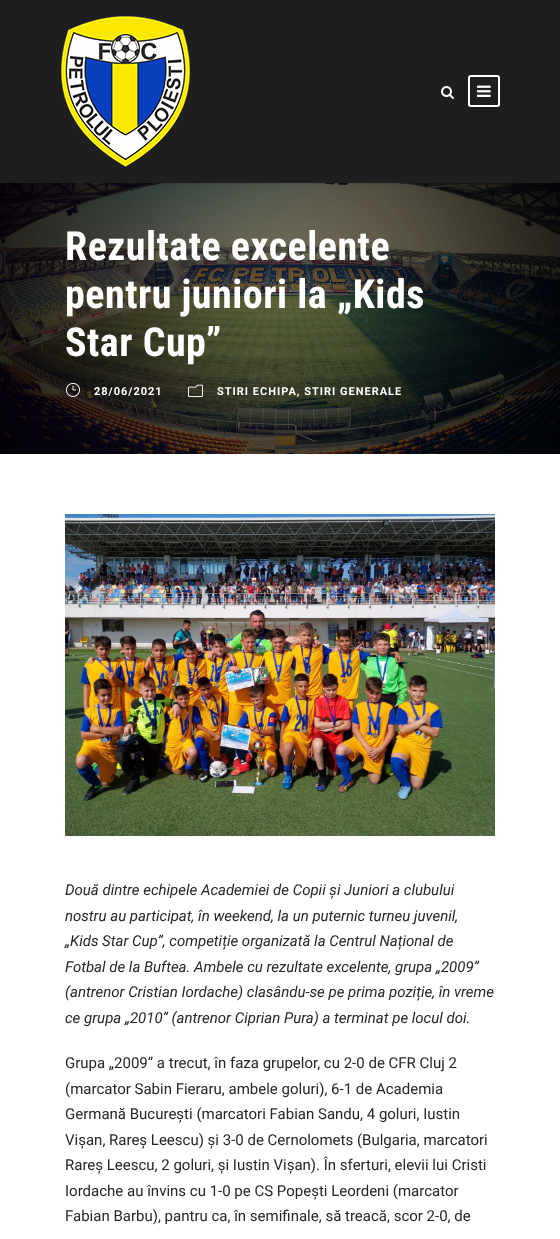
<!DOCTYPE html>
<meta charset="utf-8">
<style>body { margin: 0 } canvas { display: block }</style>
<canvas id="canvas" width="560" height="1239"></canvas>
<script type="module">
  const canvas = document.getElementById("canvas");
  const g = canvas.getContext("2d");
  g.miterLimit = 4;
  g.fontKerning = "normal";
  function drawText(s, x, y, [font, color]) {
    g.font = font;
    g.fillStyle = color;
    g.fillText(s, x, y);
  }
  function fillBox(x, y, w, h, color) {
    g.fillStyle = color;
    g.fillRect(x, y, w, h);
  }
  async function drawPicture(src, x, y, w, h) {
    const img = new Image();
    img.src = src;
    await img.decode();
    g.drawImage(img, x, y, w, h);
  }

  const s1 = ["bold 40px Roboto Condensed", "#FFFFFF"];
  const s2 = ["bold 11px Roboto", "#FFFFFF"];
  const s3 = ["italic 15px Roboto", "#262626"];
  const s4 = ["15px Roboto", "#262626"];

  fillBox(0, 0, 560, 1239, "#FFFFFF");
  await drawPicture("pic4.png", 0, 183, 560, 271);
  g.fillStyle = "rgba(0, 0, 0, 0.1)";
  g.filter = "blur(1px)";
  g.beginPath();
  g.rect(0, 1, 560, 183);
  g.fill();
  g.filter = "none";
  fillBox(0, 0, 560, 183, "#1E1E1E");
  await drawPicture("pic1.png", 60, 15, 131, 153);
  await drawPicture("pic2.png", 441, 86, 13, 13);
  g.beginPath();
  g.roundRect(469, 76, 30, 30, 2);
  g.strokeStyle = "#FFFFFF";
  g.lineWidth = 2;
  g.stroke();
  await drawPicture("pic3.png", 477, 85, 14, 12);
  g.letterSpacing = "0.5px";
  drawText("Rezultate excelente", 65, 260, s1);
  drawText("pentru juniori la „Kids", 65, 308, s1);
  drawText("Star Cup”", 65, 356, s1);
  await drawPicture("pic5.png", 66, 382, 14, 15);
  g.letterSpacing = "1px";
  drawText("28/06/2021", 94, 395, s2);
  await drawPicture("pic6.png", 188, 384, 15, 13);
  drawText("STIRI ECHIPA, STIRI GENERALE", 217, 395, s2);
  await drawPicture("pic7.png", 65, 514, 430, 322);
  g.letterSpacing = "0px";
  drawText("Două dintre echipele Academiei de Copii și Juniori a clubului", 65, 895, s3);
  drawText("nostru au participat, în weekend, la un puternic turneu juvenil,", 65, 921, s3);
  drawText("„Kids Star Cup”, competiție organizată la Centrul Național de", 65, 946, s3);
  drawText("Fotbal de la Buftea. Ambele cu rezultate excelente, grupa „2009”", 65, 972, s3);
  drawText("(antrenor Cristian Iordache) clasându-se pe prima poziție, în vreme", 65, 997, s3);
  drawText("ce grupa „2010” (antrenor Ciprian Pura) a terminat pe locul doi.", 65, 1023, s3);
  drawText("Grupa „2009” a trecut, în faza grupelor, cu 2-0 de CFR Cluj 2", 65, 1068, s4);
  drawText("(marcator Sabin Fieraru, ambele goluri), 6-1 de Academia", 65, 1094, s4);
  drawText("Germană București (marcatori Fabian Sandu, 4 goluri, Iustin", 65, 1119, s4);
  drawText("Vișan, Rareș Leescu) și 3-0 de Cernolomets (Bulgaria, marcatori", 65, 1145, s4);
  drawText("Rareș Leescu, 2 goluri, și Iustin Vișan). În sferturi, elevii lui Cristi", 65, 1170, s4);
  drawText("Iordache au învins cu 1-0 pe CS Popești Leordeni (marcator", 65, 1196, s4);
  drawText("Fabian Barbu), pantru ca, în semifinale, să treacă, scor 2-0, de", 65, 1221, s4);
</script>
